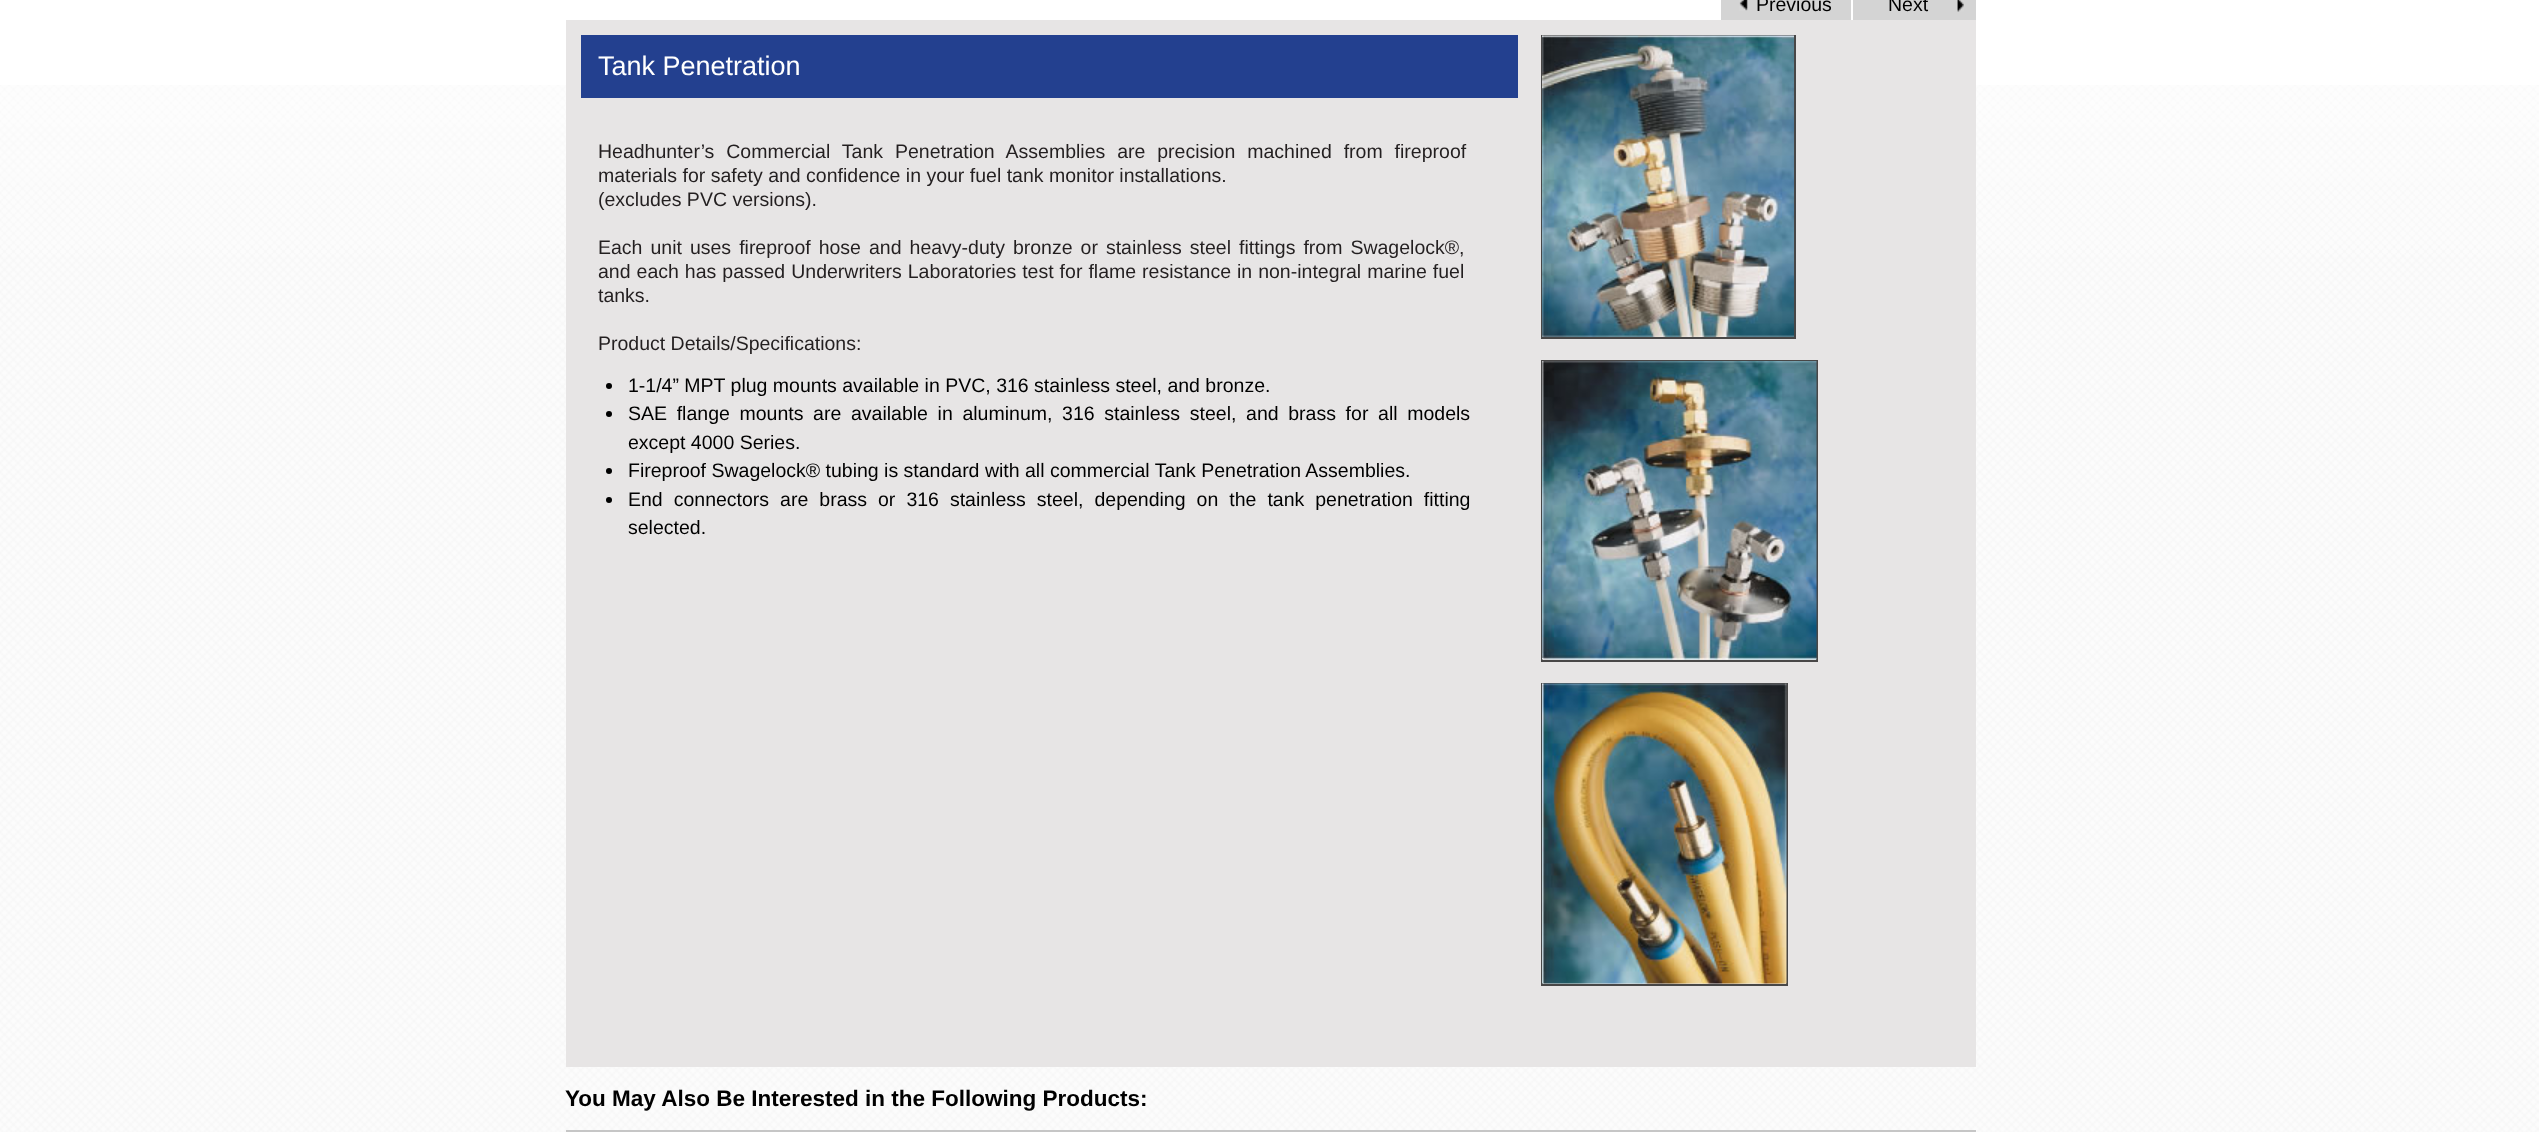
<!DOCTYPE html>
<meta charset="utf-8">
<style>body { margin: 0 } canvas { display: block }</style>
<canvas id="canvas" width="2539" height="1132"></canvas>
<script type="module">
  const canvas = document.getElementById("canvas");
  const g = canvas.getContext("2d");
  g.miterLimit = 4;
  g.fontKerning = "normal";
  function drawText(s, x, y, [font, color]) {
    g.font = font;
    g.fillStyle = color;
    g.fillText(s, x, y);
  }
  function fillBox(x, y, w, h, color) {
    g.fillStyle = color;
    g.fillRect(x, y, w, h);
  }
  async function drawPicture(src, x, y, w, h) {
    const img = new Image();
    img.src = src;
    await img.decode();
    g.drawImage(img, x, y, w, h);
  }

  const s1 = ["19.5px Liberation Sans", "#000000"];
  const s2 = ["27px Liberation Sans", "#FFFFFF"];
  const s3 = ["19.5px Liberation Sans", "#231F20"];
  const s4 = ["bold 22.5px Liberation Sans", "#000000"];

  fillBox(0, 0, 2539, 1132, "#FFFFFF");
  await drawPicture("pic1.png", 0, 85, 2539, 1047);
  fillBox(1721, 0, 255, 20, "#D4D4D4");
  fillBox(1851, 0, 2, 20, "#FFFFFF");
  await drawPicture("pic2.png", 1739, 0, 9, 11);
  drawText("Previous", 1756, 11, s1);
  await drawPicture("pic3.png", 1957, 0, 7, 12);
  drawText("Next", 1888, 11, s1);
  fillBox(566, 20, 1410, 1047, "#E7E5E5");
  fillBox(581, 35, 937, 63, "#23408F");
  drawText("Tank Penetration", 598, 75, s2);
  g.wordSpacing = "6.5px";
  drawText("Headhunter’s Commercial Tank Penetration Assemblies are precision machined from fireproof", 598, 158, s3);
  g.wordSpacing = "0px";
  drawText("materials for safety and confidence in your fuel tank monitor installations.", 598, 182, s3);
  drawText("(excludes PVC versions).", 598, 206, s3);
  g.wordSpacing = "2.6px";
  drawText("Each unit uses fireproof hose and heavy-duty bronze or stainless steel fittings from Swagelock®,", 598, 254, s3);
  g.wordSpacing = "0.6px";
  drawText("and each has passed Underwriters Laboratories test for flame resistance in non-integral marine fuel", 598, 278, s3);
  g.wordSpacing = "0px";
  drawText("tanks.", 598, 302, s3);
  drawText("Product Details/Specifications:", 598, 350, s3);
  g.fillStyle = "#000000";
  g.beginPath();
  g.arc(609, 386, 3, 0, Math.PI * 2);
  g.fill();
  drawText("1-1/4” MPT plug mounts available in PVC, 316 stainless steel, and bronze.", 628, 392, s1);
  g.beginPath();
  g.arc(609, 414, 3, 0, Math.PI * 2);
  g.fill();
  g.wordSpacing = "4.25px";
  drawText("SAE flange mounts are available in aluminum, 316 stainless steel, and brass for all models", 628, 420, s1);
  g.wordSpacing = "0px";
  drawText("except 4000 Series.", 628, 449, s1);
  g.beginPath();
  g.arc(609, 471, 3, 0, Math.PI * 2);
  g.fill();
  drawText("Fireproof Swagelock® tubing is standard with all commercial Tank Penetration Assemblies.", 628, 477, s1);
  g.beginPath();
  g.arc(609, 500, 3, 0, Math.PI * 2);
  g.fill();
  g.wordSpacing = "5.6px";
  drawText("End connectors are brass or 316 stainless steel, depending on the tank penetration fitting", 628, 506, s1);
  g.wordSpacing = "0px";
  drawText("selected.", 628, 534, s1);
  g.strokeStyle = "#484747";
  g.lineWidth = 2;
  g.strokeRect(1542, 36, 253, 302);
  await drawPicture("pic4.png", 1542, 35, 252, 302);
  g.strokeRect(1542, 361, 275, 300);
  await drawPicture("pic5.png", 1542, 361, 275, 299);
  g.strokeRect(1542, 684, 245, 301);
  await drawPicture("pic6.png", 1542, 683, 245, 301);
  drawText("You May Also Be Interested in the Following Products:", 565, 1106, s4);
  fillBox(566, 1130, 1410, 2, "#C6C6C6");
</script>
